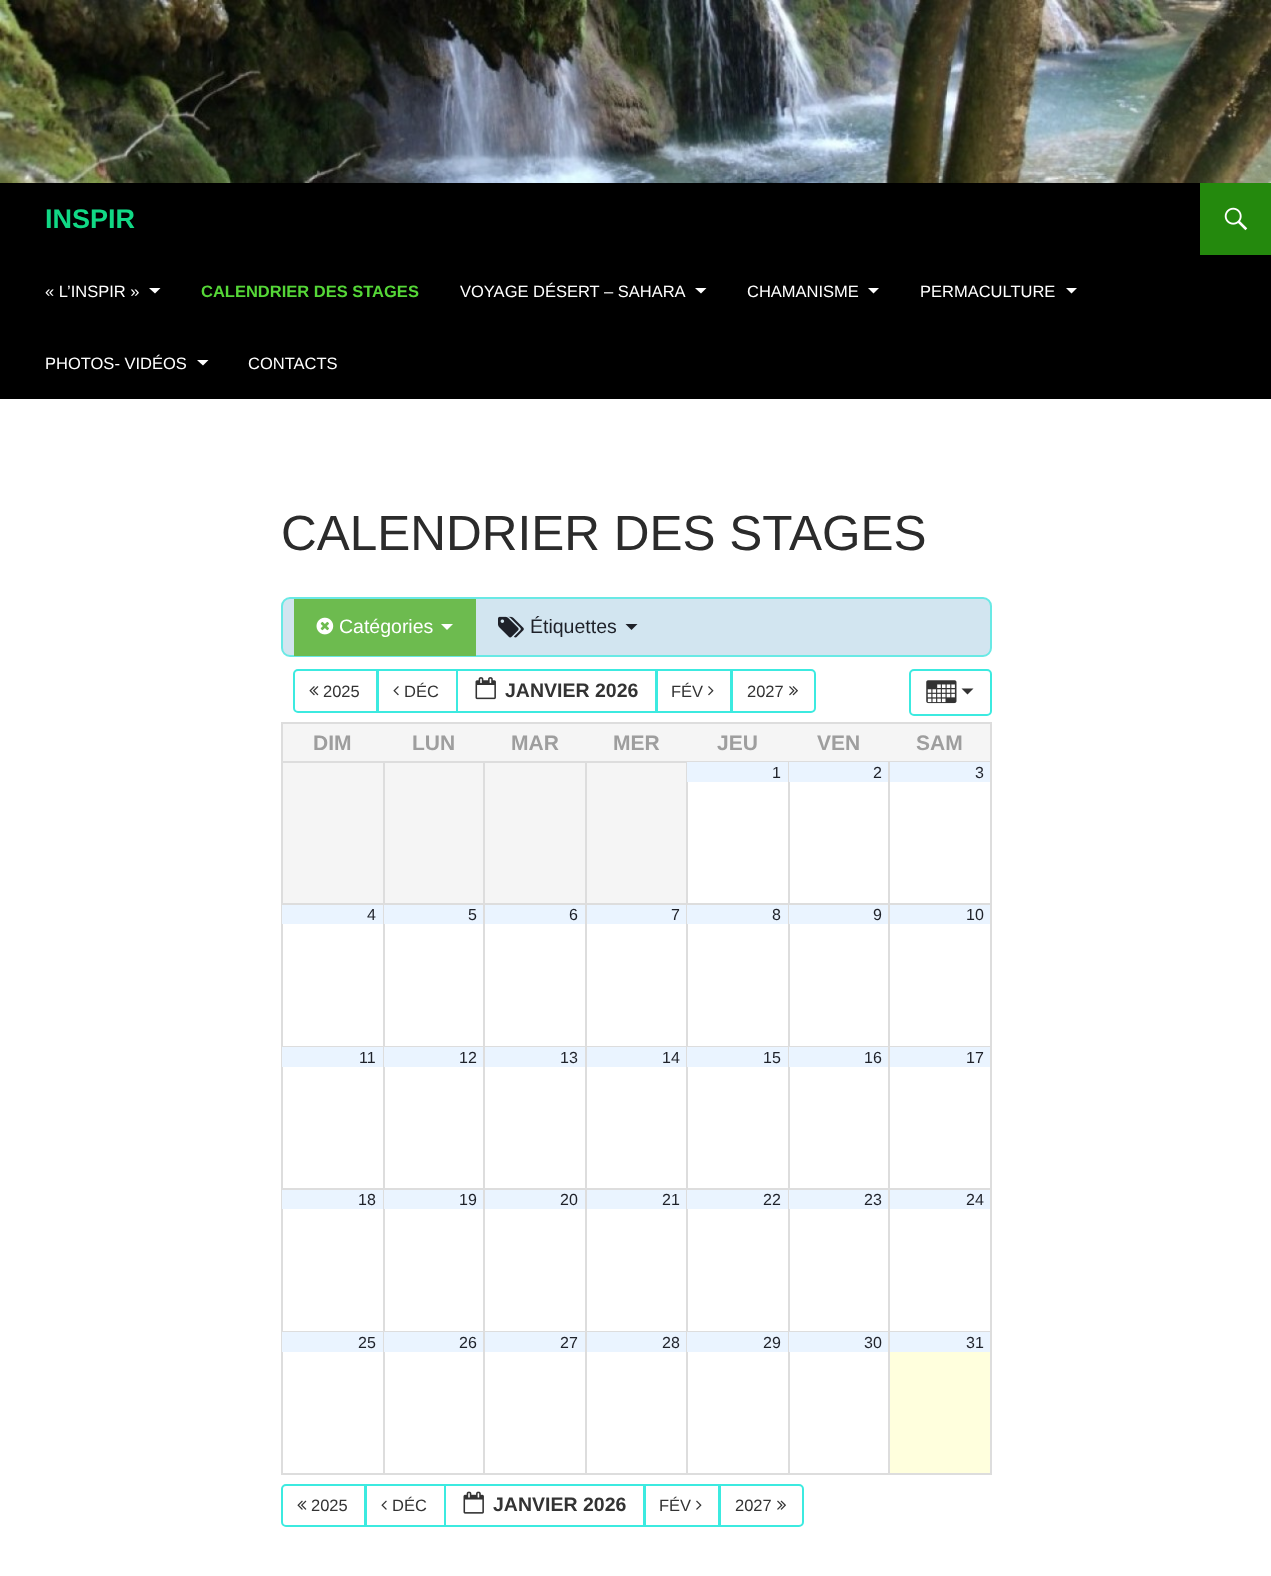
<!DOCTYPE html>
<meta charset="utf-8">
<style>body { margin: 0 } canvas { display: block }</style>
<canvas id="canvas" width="1271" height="1576"></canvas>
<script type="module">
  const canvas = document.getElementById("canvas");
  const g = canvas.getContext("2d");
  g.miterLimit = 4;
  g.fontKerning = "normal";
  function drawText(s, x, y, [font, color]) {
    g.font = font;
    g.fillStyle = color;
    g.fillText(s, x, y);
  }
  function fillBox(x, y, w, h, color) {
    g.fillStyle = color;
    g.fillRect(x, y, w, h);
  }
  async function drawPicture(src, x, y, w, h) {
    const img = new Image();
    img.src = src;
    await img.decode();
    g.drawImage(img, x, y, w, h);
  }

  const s1 = ["bold 27px Liberation Sans", "#11D885"];
  const s2 = ["16.5px Liberation Sans", "#FFFFFF"];
  const s3 = ["bold 16.5px Liberation Sans", "#55D737"];
  const s4 = ["49.5px Liberation Sans", "#2B2B2B"];
  const s5 = ["19.5px Liberation Sans", "#FFFFFF"];
  const s6 = ["19.5px Liberation Sans", "#1E2129"];
  const s7 = ["16.5px Liberation Sans", "#333333"];
  const s8 = ["bold 19.5px Liberation Sans", "#333333"];
  const s9 = ["bold 21px Liberation Sans", "#9E9E9E"];
  const s10 = ["16px Liberation Sans", "#1E2129"];

  fillBox(0, 0, 1271, 1576, "#FFFFFF");
  await drawPicture("pic1.png", 0, 0, 1271, 183);
  fillBox(0, 183, 1271, 216, "#000000");
  drawText("INSPIR", 45, 228, s1);
  fillBox(1200, 183, 71, 72, "#24890D");
  await drawPicture("pic2.png", 1224, 207, 24, 24);
  drawText("« L’INSPIR »", 45, 297, s2);
  g.beginPath();
  g.moveTo(149, 288);
  g.lineTo(155, 293.5);
  g.lineTo(160.5, 288);
  g.closePath();
  g.fill();
  drawText("CALENDRIER DES STAGES", 201, 297, s3);
  drawText("VOYAGE DÉSERT – SAHARA", 460, 297, s2);
  g.beginPath();
  g.moveTo(695, 288);
  g.lineTo(701, 293.5);
  g.lineTo(706.5, 288);
  g.closePath();
  g.fill();
  drawText("CHAMANISME", 747, 297, s2);
  g.beginPath();
  g.moveTo(868, 288);
  g.lineTo(873.5, 293.5);
  g.lineTo(879, 288);
  g.closePath();
  g.fill();
  drawText("PERMACULTURE", 920, 297, s2);
  g.beginPath();
  g.moveTo(1066, 288);
  g.lineTo(1071.5, 293.5);
  g.lineTo(1077, 288);
  g.closePath();
  g.fill();
  drawText("PHOTOS- VIDÉOS", 45, 369, s2);
  g.beginPath();
  g.moveTo(197, 360);
  g.lineTo(203, 365.5);
  g.lineTo(208.5, 360);
  g.closePath();
  g.fill();
  drawText("CONTACTS", 248, 369, s2);
  drawText("CALENDRIER DES STAGES", 281, 550, s4);
  g.fillStyle = "#D2E5F0";
  g.beginPath();
  g.roundRect(282, 598, 709, 58, 8);
  g.fill();
  g.strokeStyle = "#69E9E5";
  g.lineWidth = 2;
  g.stroke();
  fillBox(294, 599, 182, 57, "#6DBB4F");
  await drawPicture("pic3.png", 316, 617, 18, 18);
  drawText("Catégories", 339, 633, s5);
  g.beginPath();
  g.moveTo(441, 624);
  g.lineTo(453, 624);
  g.lineTo(447, 630);
  g.closePath();
  g.fill();
  await drawPicture("pic4.png", 498, 616, 26, 22);
  drawText("Étiquettes", 530, 633, s6);
  g.beginPath();
  g.moveTo(625.5, 624);
  g.lineTo(637.5, 624);
  g.lineTo(631.5, 630);
  g.closePath();
  g.fill();
  g.beginPath();
  g.roundRect(294, 670, 83, 42, [4, 0, 0, 4]);
  g.strokeStyle = "#3CEAE0";
  g.stroke();
  await drawPicture("pic5.png", 309, 686, 10, 10);
  drawText("2025", 323, 697, s7);
  g.strokeRect(378, 670, 79, 42);
  await drawPicture("pic6.png", 393, 686, 6, 10);
  drawText("DÉC", 404, 697, s7);
  g.strokeRect(457, 670, 199, 42);
  await drawPicture("pic7.png", 475, 677, 21, 23);
  drawText("JANVIER 2026", 505, 697, s8);
  g.strokeRect(657, 670, 74, 42);
  drawText("FÉV", 671, 697, s7);
  await drawPicture("pic8.png", 708, 686, 6, 10);
  g.fillStyle = "#FFFFFF";
  g.beginPath();
  g.roundRect(732, 670, 83, 42, [0, 4, 4, 0]);
  g.fill();
  g.stroke();
  drawText("2027", 747, 697, s7);
  await drawPicture("pic9.png", 789, 686, 9, 10);
  g.beginPath();
  g.roundRect(910, 670, 81, 45, 4);
  g.stroke();
  await drawPicture("pic10.png", 926, 680, 31, 24);
  g.beginPath();
  g.moveTo(961.5, 688.5);
  g.lineTo(973.5, 688.5);
  g.lineTo(967.5, 694.5);
  g.closePath();
  g.fill();
  fillBox(281, 722, 711, 2, "#DDDDDD");
  fillBox(990, 722, 2, 753, "#DDDDDD");
  fillBox(281, 1473, 711, 2, "#DDDDDD");
  fillBox(281, 722, 2, 753, "#DDDDDD");
  fillBox(283, 724, 707, 37, "#F5F5F5");
  drawText("DIM", 313, 750, s9);
  drawText("LUN", 412, 750, s9);
  drawText("MAR", 511, 750, s9);
  drawText("MER", 613, 750, s9);
  drawText("JEU", 717, 750, s9);
  drawText("VEN", 817, 750, s9);
  drawText("SAM", 916, 750, s9);
  fillBox(283, 763, 100, 140, "#F5F5F5");
  fillBox(888, 761, 104, 2, "#DDDDDD");
  fillBox(888, 903, 104, 2, "#DDDDDD");
  fillBox(888, 1046, 104, 2, "#DDDDDD");
  fillBox(888, 1188, 104, 2, "#DDDDDD");
  fillBox(888, 1331, 104, 2, "#DDDDDD");
  fillBox(888, 1331, 2, 144, "#DDDDDD");
  fillBox(788, 1331, 102, 2, "#DDDDDD");
  fillBox(888, 1188, 2, 144, "#DDDDDD");
  fillBox(788, 1188, 102, 2, "#DDDDDD");
  fillBox(888, 1046, 2, 144, "#DDDDDD");
  fillBox(788, 1046, 102, 2, "#DDDDDD");
  fillBox(888, 903, 2, 144, "#DDDDDD");
  fillBox(788, 903, 102, 2, "#DDDDDD");
  fillBox(888, 761, 2, 144, "#DDDDDD");
  fillBox(788, 761, 102, 2, "#DDDDDD");
  fillBox(788, 1331, 2, 144, "#DDDDDD");
  fillBox(686, 1331, 103, 2, "#DDDDDD");
  fillBox(788, 1188, 2, 144, "#DDDDDD");
  fillBox(686, 1188, 103, 2, "#DDDDDD");
  fillBox(788, 1046, 2, 144, "#DDDDDD");
  fillBox(686, 1046, 103, 2, "#DDDDDD");
  fillBox(788, 903, 2, 144, "#DDDDDD");
  fillBox(686, 903, 103, 2, "#DDDDDD");
  fillBox(788, 761, 2, 144, "#DDDDDD");
  fillBox(686, 761, 103, 2, "#DDDDDD");
  fillBox(686, 1331, 2, 144, "#DDDDDD");
  fillBox(585, 1331, 102, 2, "#DDDDDD");
  fillBox(686, 1188, 2, 144, "#DDDDDD");
  fillBox(585, 1188, 102, 2, "#DDDDDD");
  fillBox(686, 1046, 2, 144, "#DDDDDD");
  fillBox(585, 1046, 102, 2, "#DDDDDD");
  fillBox(686, 903, 2, 144, "#DDDDDD");
  fillBox(585, 903, 102, 2, "#DDDDDD");
  fillBox(686, 761, 2, 144, "#DDDDDD");
  fillBox(585, 761, 102, 2, "#DDDDDD");
  fillBox(585, 1331, 2, 144, "#DDDDDD");
  fillBox(483, 1331, 104, 2, "#DDDDDD");
  fillBox(585, 1188, 2, 144, "#DDDDDD");
  fillBox(483, 1188, 104, 2, "#DDDDDD");
  fillBox(585, 1046, 2, 144, "#DDDDDD");
  fillBox(483, 1046, 104, 2, "#DDDDDD");
  fillBox(585, 903, 2, 144, "#DDDDDD");
  fillBox(483, 903, 104, 2, "#DDDDDD");
  fillBox(585, 761, 2, 144, "#DDDDDD");
  fillBox(483, 761, 104, 2, "#DDDDDD");
  fillBox(483, 1331, 2, 144, "#DDDDDD");
  fillBox(383, 1331, 102, 2, "#DDDDDD");
  fillBox(483, 1188, 2, 144, "#DDDDDD");
  fillBox(383, 1188, 102, 2, "#DDDDDD");
  fillBox(483, 1046, 2, 144, "#DDDDDD");
  fillBox(383, 1046, 102, 2, "#DDDDDD");
  fillBox(483, 903, 2, 144, "#DDDDDD");
  fillBox(383, 903, 102, 2, "#DDDDDD");
  fillBox(483, 761, 2, 144, "#DDDDDD");
  fillBox(383, 761, 102, 2, "#DDDDDD");
  fillBox(383, 1331, 2, 144, "#DDDDDD");
  fillBox(281, 1331, 103, 2, "#DDDDDD");
  fillBox(383, 1188, 2, 144, "#DDDDDD");
  fillBox(281, 1188, 103, 2, "#DDDDDD");
  fillBox(383, 1046, 2, 144, "#DDDDDD");
  fillBox(281, 1046, 103, 2, "#DDDDDD");
  fillBox(383, 903, 2, 144, "#DDDDDD");
  fillBox(281, 903, 103, 2, "#DDDDDD");
  fillBox(383, 761, 2, 144, "#DDDDDD");
  fillBox(281, 761, 103, 2, "#DDDDDD");
  fillBox(385, 763, 98, 140, "#F5F5F5");
  fillBox(485, 763, 100, 140, "#F5F5F5");
  fillBox(587, 763, 99, 140, "#F5F5F5");
  fillBox(687, 762, 101, 20, "#EAF4FF");
  drawText("1", 772, 778, s10);
  fillBox(789, 762, 99, 20, "#EAF4FF");
  drawText("2", 873, 778, s10);
  fillBox(890, 762, 100, 20, "#EAF4FF");
  drawText("3", 975, 778, s10);
  fillBox(282, 905, 101, 19, "#EAF4FF");
  drawText("4", 367, 920, s10);
  fillBox(384, 905, 99, 19, "#EAF4FF");
  drawText("5", 468, 920, s10);
  fillBox(485, 905, 100, 19, "#EAF4FF");
  drawText("6", 569, 920, s10);
  fillBox(587, 905, 99, 19, "#EAF4FF");
  drawText("7", 671, 920, s10);
  fillBox(687, 905, 101, 19, "#EAF4FF");
  drawText("8", 772, 920, s10);
  fillBox(789, 905, 99, 19, "#EAF4FF");
  drawText("9", 873, 920, s10);
  fillBox(890, 905, 100, 19, "#EAF4FF");
  drawText("10", 966, 920, s10);
  fillBox(282, 1047, 101, 20, "#EAF4FF");
  drawText("11", 359, 1063, s10);
  fillBox(384, 1047, 99, 20, "#EAF4FF");
  drawText("12", 459, 1063, s10);
  fillBox(485, 1047, 100, 20, "#EAF4FF");
  drawText("13", 560, 1063, s10);
  fillBox(587, 1047, 99, 20, "#EAF4FF");
  drawText("14", 662, 1063, s10);
  fillBox(687, 1047, 101, 20, "#EAF4FF");
  drawText("15", 763, 1063, s10);
  fillBox(789, 1047, 99, 20, "#EAF4FF");
  drawText("16", 864, 1063, s10);
  fillBox(890, 1047, 100, 20, "#EAF4FF");
  drawText("17", 966, 1063, s10);
  fillBox(282, 1190, 101, 19, "#EAF4FF");
  drawText("18", 358, 1205, s10);
  fillBox(384, 1190, 99, 19, "#EAF4FF");
  drawText("19", 459, 1205, s10);
  fillBox(485, 1190, 100, 19, "#EAF4FF");
  drawText("20", 560, 1205, s10);
  fillBox(587, 1190, 99, 19, "#EAF4FF");
  drawText("21", 662, 1205, s10);
  fillBox(687, 1190, 101, 19, "#EAF4FF");
  drawText("22", 763, 1205, s10);
  fillBox(789, 1190, 99, 19, "#EAF4FF");
  drawText("23", 864, 1205, s10);
  fillBox(890, 1190, 100, 19, "#EAF4FF");
  drawText("24", 966, 1205, s10);
  fillBox(282, 1332, 101, 20, "#EAF4FF");
  drawText("25", 358, 1348, s10);
  fillBox(384, 1332, 99, 20, "#EAF4FF");
  drawText("26", 459, 1348, s10);
  fillBox(485, 1332, 100, 20, "#EAF4FF");
  drawText("27", 560, 1348, s10);
  fillBox(587, 1332, 99, 20, "#EAF4FF");
  drawText("28", 662, 1348, s10);
  fillBox(687, 1332, 101, 20, "#EAF4FF");
  drawText("29", 763, 1348, s10);
  fillBox(789, 1332, 99, 20, "#EAF4FF");
  drawText("30", 864, 1348, s10);
  fillBox(890, 1352, 100, 121, "#FFFFDD");
  fillBox(890, 1332, 100, 20, "#EAF4FF");
  drawText("31", 966, 1348, s10);
  g.beginPath();
  g.roundRect(282, 1485, 83, 41, [4, 0, 0, 4]);
  g.stroke();
  await drawPicture("pic11.png", 297, 1500, 10, 10);
  drawText("2025", 311, 1511, s7);
  g.strokeRect(366, 1485, 79, 41);
  await drawPicture("pic12.png", 381, 1500, 6, 10);
  drawText("DÉC", 392, 1511, s7);
  g.strokeRect(445, 1485, 199, 41);
  await drawPicture("pic13.png", 463, 1491, 21, 23);
  drawText("JANVIER 2026", 493, 1511, s8);
  g.strokeRect(645, 1485, 74, 41);
  drawText("FÉV", 659, 1511, s7);
  await drawPicture("pic14.png", 696, 1500, 6, 10);
  g.fillStyle = "#FFFFFF";
  g.beginPath();
  g.roundRect(720, 1485, 83, 41, [0, 4, 4, 0]);
  g.fill();
  g.stroke();
  drawText("2027", 735, 1511, s7);
  await drawPicture("pic15.png", 777, 1500, 9, 10);
</script>
